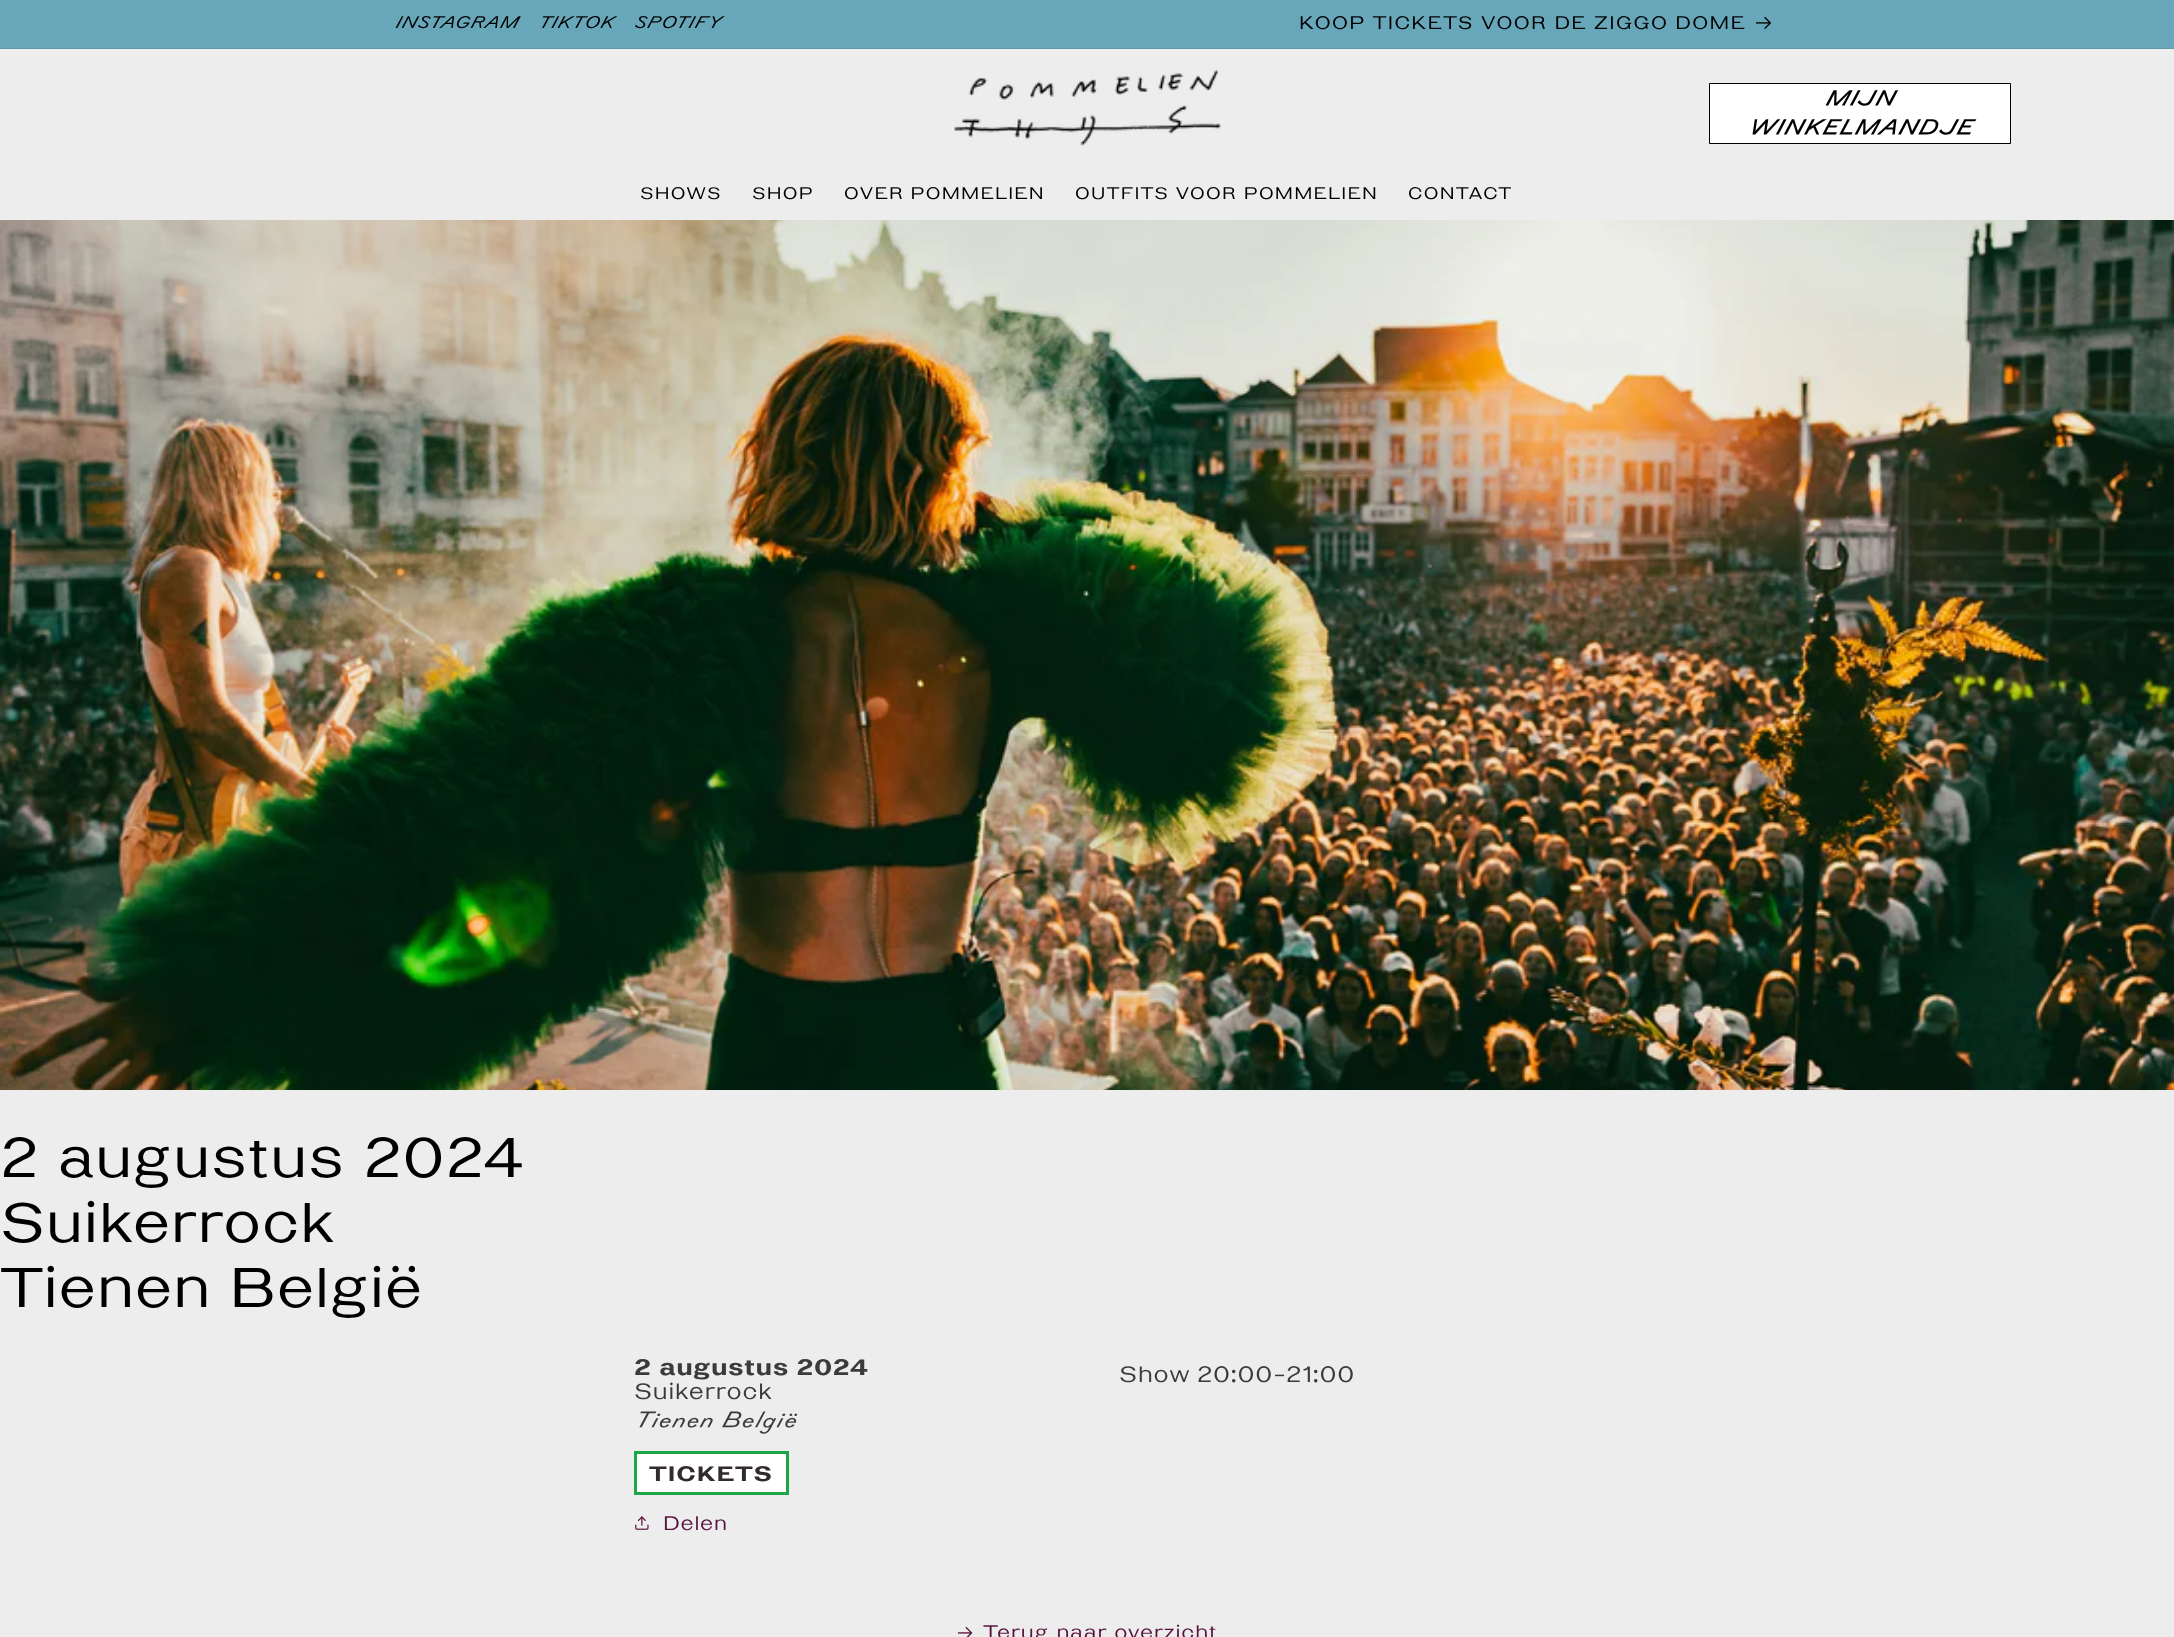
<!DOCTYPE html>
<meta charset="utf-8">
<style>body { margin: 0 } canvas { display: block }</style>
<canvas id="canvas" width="2174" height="1637"></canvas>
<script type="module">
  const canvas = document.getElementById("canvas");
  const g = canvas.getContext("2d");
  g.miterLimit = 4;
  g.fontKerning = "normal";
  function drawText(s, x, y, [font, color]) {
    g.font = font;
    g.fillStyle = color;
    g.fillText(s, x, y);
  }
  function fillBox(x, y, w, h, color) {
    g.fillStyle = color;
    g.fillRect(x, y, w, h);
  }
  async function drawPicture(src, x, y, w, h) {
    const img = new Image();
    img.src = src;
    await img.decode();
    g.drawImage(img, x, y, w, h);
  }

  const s1 = ["italic 15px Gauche", "#000000"];
  const s2 = ["16.25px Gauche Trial", "#000000"];
  const s3 = ["italic bold 18.75px Gauche", "#000000"];
  const s4 = ["15px Gauche Trial", "#000000"];
  const s5 = ["50px Gauche Trial", "#000000"];
  const s6 = ["bold 20px Gauche Trial", "#3B3B3B"];
  const s7 = ["20px Gauche Trial", "#3B3B3B"];
  const s8 = ["italic 20px Gauche", "#3B3B3B"];
  const s9 = ["bold 18.75px Gauche Trial", "#322B2B"];
  const s10 = ["17.5px Gauche Trial", "#59113D"];

  fillBox(0, 0, 2174, 1637, "#EDEDED");
  fillBox(0, 0, 2174, 48, "#68A7BA");
  fillBox(0, 48, 2174, 1, "#609AAB");
  g.letterSpacing = "0.75px";
  drawText("INSTAGRAM", 395, 30, s1);
  drawText("TIKTOK", 538, 30, s1);
  drawText("SPOTIFY", 634, 30, s1);
  g.letterSpacing = "1.25px";
  drawText("KOOP TICKETS VOOR DE ZIGGO DOME", 1299, 29, s2);
  await drawPicture("pic1.png", 1756, 17, 15, 12);
  await drawPicture("pic2.png", 954, 70, 267, 76);
  g.fillStyle = "#FFFFFF";
  g.beginPath();
  g.rect(1709.5, 83.5, 301, 60);
  g.fill();
  g.strokeStyle = "#000000";
  g.stroke();
  drawText("MIJN", 1825, 108, s3);
  drawText("WINKELMANDJE", 1748, 137, s3);
  g.letterSpacing = "1.2px";
  drawText("SHOWS", 640, 199, s4);
  drawText("SHOP", 752, 199, s4);
  drawText("OVER POMMELIEN", 844, 199, s4);
  drawText("OUTFITS VOOR POMMELIEN", 1075, 199, s4);
  drawText("CONTACT", 1408, 199, s4);
  await drawPicture("pic3.png", 0, 220, 2174, 870);
  g.letterSpacing = "0.75px";
  drawText("2 augustus 2024", 0, 1177, s5);
  drawText("Suikerrock", 0, 1242, s5);
  drawText("Tienen België", 0, 1307, s5);
  drawText("2 augustus 2024", 634, 1375, s6);
  drawText("Suikerrock", 634, 1399, s7);
  drawText("Tienen België", 634, 1430, s8);
  fillBox(637, 1454, 149, 38, "#FFFFFF");
  g.strokeStyle = "#1DA648";
  g.lineWidth = 3;
  g.strokeRect(635.5, 1452.5, 152, 41);
  g.letterSpacing = "1.25px";
  drawText("TICKETS", 649, 1481, s9);
  await drawPicture("pic4.png", 635, 1516, 14, 14);
  g.letterSpacing = "0.75px";
  drawText("Delen", 663, 1530, s10);
  g.wordSpacing = "-1px";
  drawText("Show 20:00-", 1119, 1382, s7);
  g.wordSpacing = "0px";
  drawText("21:00", 1286, 1382, s7);
  await drawPicture("pic5.png", 958, 1626, 15, 11);
  drawText("Terug naar overzicht", 983, 1639, s10);
</script>
